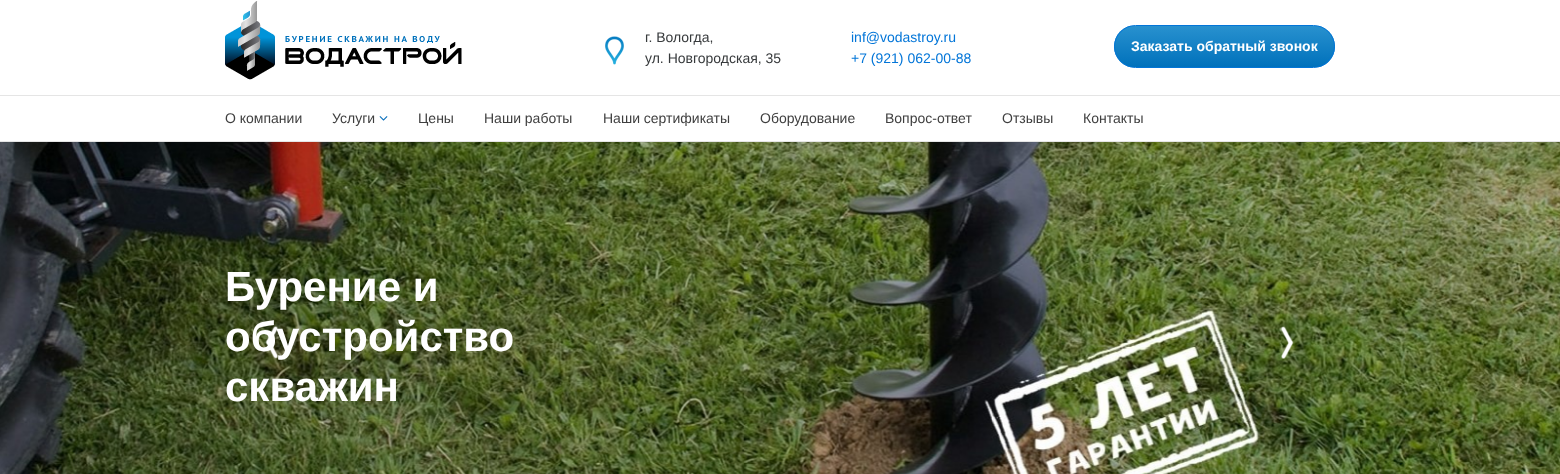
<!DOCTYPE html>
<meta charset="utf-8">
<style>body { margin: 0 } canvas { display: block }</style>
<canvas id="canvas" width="1560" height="474"></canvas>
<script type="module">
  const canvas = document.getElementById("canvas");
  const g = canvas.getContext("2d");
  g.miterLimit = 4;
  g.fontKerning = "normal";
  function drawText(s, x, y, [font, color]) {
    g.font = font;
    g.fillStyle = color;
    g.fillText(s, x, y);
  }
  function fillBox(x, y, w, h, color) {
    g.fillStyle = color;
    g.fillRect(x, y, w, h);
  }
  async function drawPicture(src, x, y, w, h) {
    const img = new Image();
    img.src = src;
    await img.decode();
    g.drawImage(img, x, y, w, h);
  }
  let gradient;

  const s1 = ["14px Liberation Sans", "#373A3C"];
  const s2 = ["14px Liberation Sans", "#0275D8"];
  const s3 = ["bold 14px Liberation Sans", "#FFFFFF"];
  const s4 = ["14px Liberation Sans", "#3F3F3F"];
  const s5 = ["bold 42px Liberation Sans", "#FFFFFF"];

  fillBox(0, 0, 1560, 474, "#FFFFFF");
  await drawPicture("pic1.png", 225, 1, 237, 79);
  await drawPicture("pic2.png", 605, 36, 19, 29);
  drawText("г. Вологда,", 645, 42, s1);
  drawText("ул. Новгородская, 35", 645, 63, s1);
  drawText("inf@vodastroy.ru", 851, 42, s2);
  drawText("+7 (921) 062-00-88", 851, 63, s2);
  g.save();
  g.beginPath();
  g.roundRect(1114, 25, 221, 43, 21.5);
  g.clip();
  gradient = g.createLinearGradient(1225, 67, 1225, 26);
  gradient.addColorStop(0, "#0071BB");
  gradient.addColorStop(1, "#2891CF");
  g.fillStyle = gradient;
  g.fillRect(1114, 26, 221, 41);
  g.restore();
  g.beginPath();
  g.roundRect(1114.5, 25.5, 220, 42, 21);
  g.strokeStyle = "#0275D8";
  g.stroke();
  drawText("Заказать обратный звонок", 1131, 51, s3);
  fillBox(0, 95, 1560, 1, "#E5E5E5");
  fillBox(0, 141, 1560, 1, "#E5E5E5");
  drawText("О компании", 225, 123, s4);
  drawText("Услуги", 332, 123, s4);
  await drawPicture("pic3.png", 379, 116, 9, 5);
  drawText("Цены", 418, 123, s4);
  drawText("Наши работы", 484, 123, s4);
  drawText("Наши сертификаты", 603, 123, s4);
  drawText("Оборудование", 760, 123, s4);
  drawText("Вопрос-ответ", 885, 123, s4);
  drawText("Отзывы", 1002, 123, s4);
  drawText("Контакты", 1083, 123, s4);
  await drawPicture("pic4.png", 0, 142, 1560, 332);
  drawText("Бурение и", 225, 301, s5);
  drawText("обустройство", 225, 351, s5);
  drawText("скважин", 225, 401, s5);
  await drawPicture("pic5.png", 265, 325, 14, 34);
  await drawPicture("pic6.png", 1280, 326, 14, 33);
</script>
